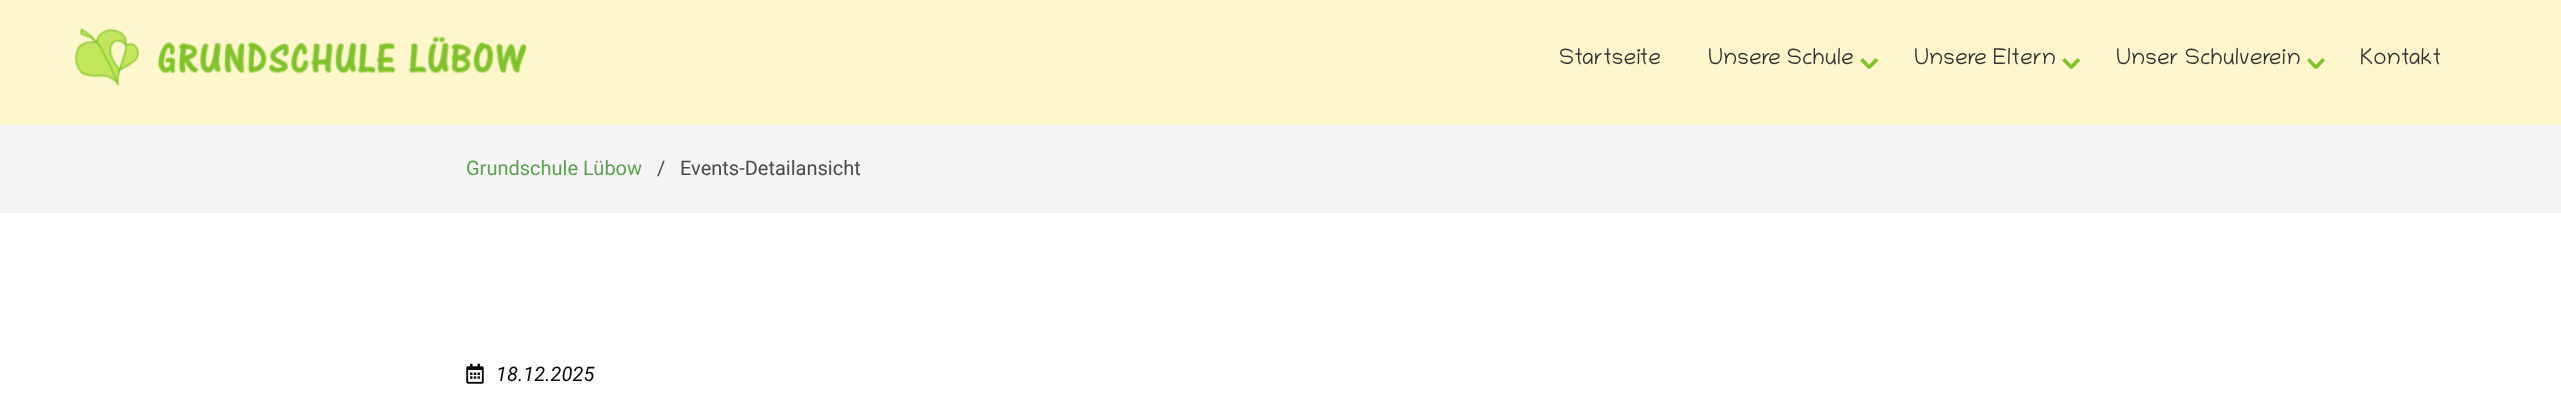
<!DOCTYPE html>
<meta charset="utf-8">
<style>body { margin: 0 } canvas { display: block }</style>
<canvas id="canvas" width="2561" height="404"></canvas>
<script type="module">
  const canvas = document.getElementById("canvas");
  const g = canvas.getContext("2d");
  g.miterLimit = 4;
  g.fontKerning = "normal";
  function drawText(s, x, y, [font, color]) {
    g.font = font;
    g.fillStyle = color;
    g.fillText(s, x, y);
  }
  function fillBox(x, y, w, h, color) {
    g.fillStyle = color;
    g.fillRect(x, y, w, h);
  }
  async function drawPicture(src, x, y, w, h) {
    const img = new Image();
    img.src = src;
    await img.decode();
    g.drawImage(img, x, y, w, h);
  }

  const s1 = ["22.5px Chilanka", "#333333"];
  const s2 = ["20px Roboto", "#5CA152"];
  const s3 = ["20px Roboto", "#4A4A4A"];
  const s4 = ["italic 20px Roboto", "#0A0A0A"];

  fillBox(0, 0, 2561, 404, "#FFFFFF");
  fillBox(0, 0, 2561, 125, "#FFF6CE");
  await drawPicture("pic1.png", 74, 27, 453, 60);
  drawText("Startseite", 1559, 64, s1);
  drawText("Unsere Schule", 1708, 64, s1);
  g.fillStyle = "#7FC329";
  g.beginPath();
  g.moveTo(1867.5, 66.5);
  g.lineTo(1875.5, 58);
  g.lineTo(1878.5, 60.5);
  g.lineTo(1870, 69);
  g.closePath();
  g.fill();
  g.beginPath();
  g.moveTo(1860, 60.5);
  g.lineTo(1863, 58);
  g.lineTo(1871, 66.5);
  g.lineTo(1868.5, 69);
  g.closePath();
  g.fill();
  drawText("Unsere Eltern", 1914, 64, s1);
  g.fillStyle = "#7FC329";
  g.beginPath();
  g.moveTo(2069.5, 66.5);
  g.lineTo(2077.5, 58);
  g.lineTo(2080.5, 60.5);
  g.lineTo(2072, 69);
  g.closePath();
  g.fill();
  g.beginPath();
  g.moveTo(2062, 60.5);
  g.lineTo(2065, 58);
  g.lineTo(2073, 66.5);
  g.lineTo(2070.5, 69);
  g.closePath();
  g.fill();
  drawText("Unser Schulverein", 2116, 64, s1);
  g.fillStyle = "#7FC329";
  g.beginPath();
  g.moveTo(2314, 66.5);
  g.lineTo(2322.5, 58);
  g.lineTo(2325, 60.5);
  g.lineTo(2317, 69);
  g.closePath();
  g.fill();
  g.beginPath();
  g.moveTo(2307, 60.5);
  g.lineTo(2309.5, 58);
  g.lineTo(2317.5, 66.5);
  g.lineTo(2315, 69);
  g.closePath();
  g.fill();
  drawText("Kontakt", 2360, 64, s1);
  fillBox(0, 125, 2561, 88, "#F5F5F5");
  drawText("Grundschule Lübow", 466, 175, s2);
  drawText("/", 657, 175, s3);
  drawText("Events-Detailansicht", 680, 175, s3);
  await drawPicture("pic2.png", 466, 363, 18, 21);
  drawText("18.12.2025", 496, 381, s4);
</script>
